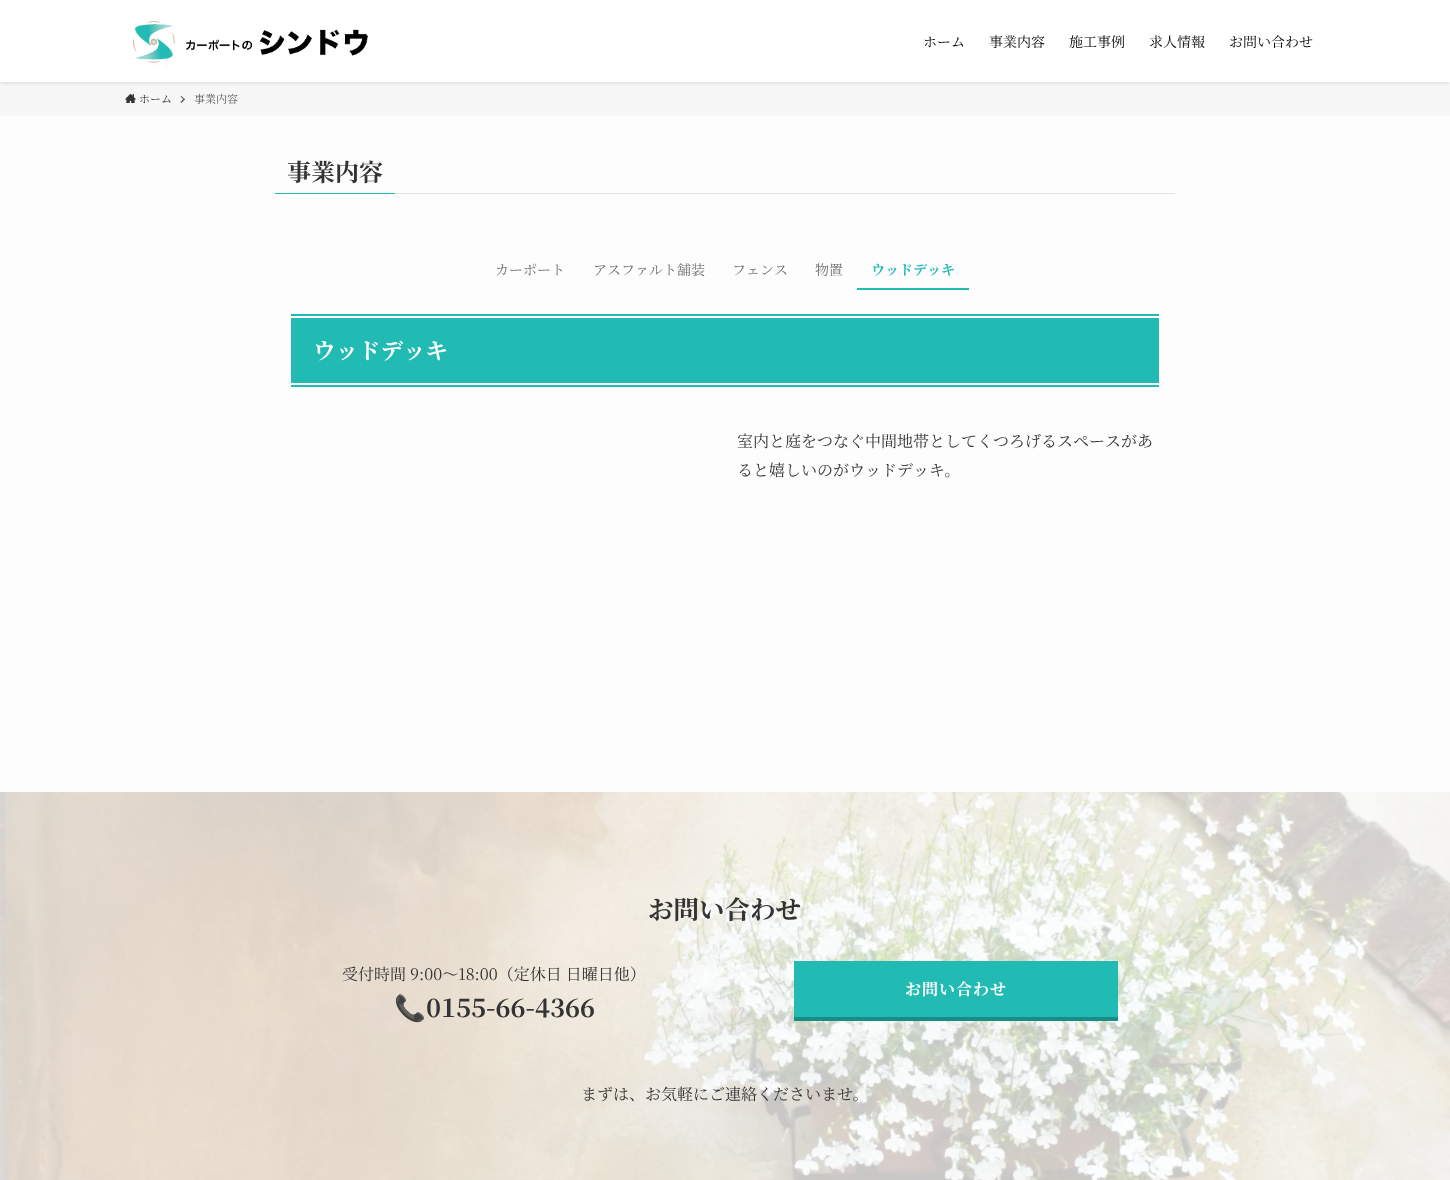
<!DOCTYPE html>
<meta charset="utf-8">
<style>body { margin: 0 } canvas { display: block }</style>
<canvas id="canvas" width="1450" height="1180"></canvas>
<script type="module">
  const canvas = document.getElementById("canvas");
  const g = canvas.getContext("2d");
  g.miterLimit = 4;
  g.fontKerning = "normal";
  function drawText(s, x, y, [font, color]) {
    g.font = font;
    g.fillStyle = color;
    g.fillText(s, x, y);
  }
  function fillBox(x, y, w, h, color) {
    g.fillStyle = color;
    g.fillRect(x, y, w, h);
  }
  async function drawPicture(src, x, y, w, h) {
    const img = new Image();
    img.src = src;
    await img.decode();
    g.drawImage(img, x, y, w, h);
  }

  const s1 = ["14px Noto Serif JP", "#000000"];
  const s2 = ["11px Noto Serif JP", "#333333"];
  const s3 = ["11px Noto Serif JP", "#5A5A5A"];
  const s4 = ["bold 24px Noto Serif JP", "#333333"];
  const s5 = ["14px Noto Serif JP", "#707070"];
  const s6 = ["bold 14px Noto Serif JP", "#22BBB4"];
  const s7 = ["bold 22.5px Noto Serif JP", "#FFFFFF"];
  const s8 = ["16px Noto Serif JP", "#333333"];
  const s9 = ["bold 25.5px Noto Serif JP", "#333333"];
  const s10 = ["bold 25.5px Noto Color Emoji", "#333333"];
  const s11 = ["bold 16px Noto Serif JP", "#FFFFFF"];

  fillBox(0, 0, 1450, 1180, "#FDFDFD");
  fillBox(0, 82, 1450, 34, "#F7F7F7");
  g.fillStyle = "rgba(0, 0, 0, 0.12)";
  g.filter = "blur(2px)";
  g.beginPath();
  g.rect(0, 1, 1450, 82);
  g.fill();
  g.filter = "none";
  fillBox(0, 0, 1450, 82, "#FFFFFF");
  await drawPicture("pic1.png", 132, 20, 236, 46);
  drawText("ホーム", 923, 47, s1);
  drawText("事業内容", 989, 47, s1);
  drawText("施工事例", 1069, 47, s1);
  drawText("求人情報", 1149, 47, s1);
  drawText("お問い合わせ", 1229, 47, s1);
  await drawPicture("pic2.png", 125, 93, 11, 10);
  drawText("ホーム", 139, 103, s2);
  g.fillStyle = "#5A5A5A";
  g.beginPath();
  g.moveTo(181.5, 96);
  g.lineTo(185, 99.5);
  g.lineTo(184, 100);
  g.lineTo(180.5, 96.5);
  g.closePath();
  g.fill();
  g.beginPath();
  g.moveTo(184, 98.5);
  g.lineTo(185, 99.5);
  g.lineTo(181.5, 103);
  g.lineTo(180.5, 102);
  g.closePath();
  g.fill();
  drawText("事業内容", 194, 103, s3);
  fillBox(395, 193, 780, 1, "#E3E3E3");
  fillBox(275, 193, 120, 1, "#22BBB4");
  drawText("事業内容", 287, 181, s4);
  drawText("カーポート", 495, 275, s5);
  drawText("アスファルト舗装", 593, 275, s5);
  drawText("フェンス", 732, 275, s5);
  drawText("物置", 815, 275, s5);
  drawText("ウッドデッキ", 871, 275, s6);
  fillBox(857, 288, 112, 2, "#22BBB4");
  fillBox(291, 318, 868, 65, "#22BBB4");
  fillBox(291, 314, 868, 2, "#22BBB4");
  fillBox(291, 385, 868, 2, "#22BBB4");
  drawText("ウッドデッキ", 313, 359, s7);
  drawText("室内と庭をつなぐ中間地帯としてくつろげるスペースがあ", 737, 447, s8);
  drawText("ると嬉しいのがウッドデッキ。", 737, 476, s8);
  await drawPicture("pic3.png", 0, 792, 1450, 388);
  drawText("お問い合わせ", 648, 919, s9);
  drawText("受付時間 9:00～18:00（定休日 日曜日他）", 342, 980, s8);
  drawText("📞", 394, 1017, s10);
  drawText("0155-66-4366", 426, 1017, s9);
  fillBox(794, 1017, 324, 4, "#1A8C87");
  fillBox(794, 961, 324, 56, "#22BBB4");
  g.letterSpacing = "1px";
  drawText("お問い合わせ", 905, 995, s11);
  g.letterSpacing = "0px";
  drawText("まずは、お気軽にご連絡くださいませ。", 581, 1100, s8);
</script>
